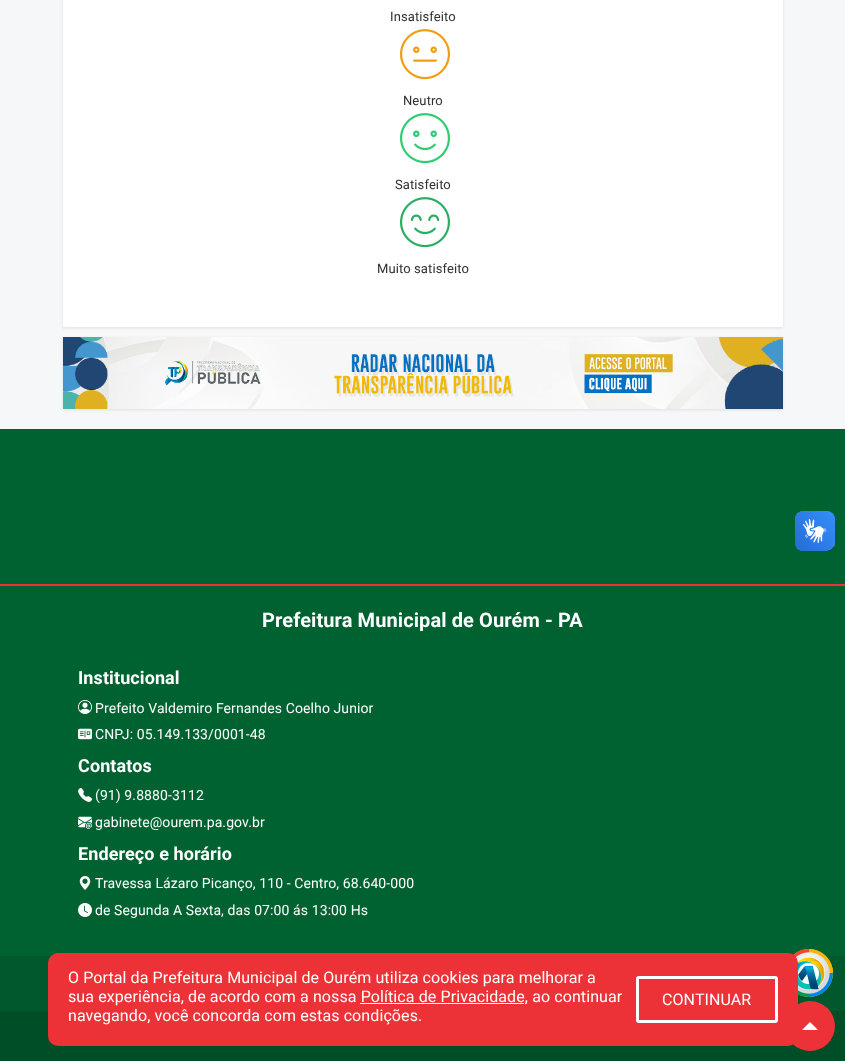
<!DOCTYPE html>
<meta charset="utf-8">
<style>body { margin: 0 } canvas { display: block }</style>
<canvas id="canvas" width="845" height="1061"></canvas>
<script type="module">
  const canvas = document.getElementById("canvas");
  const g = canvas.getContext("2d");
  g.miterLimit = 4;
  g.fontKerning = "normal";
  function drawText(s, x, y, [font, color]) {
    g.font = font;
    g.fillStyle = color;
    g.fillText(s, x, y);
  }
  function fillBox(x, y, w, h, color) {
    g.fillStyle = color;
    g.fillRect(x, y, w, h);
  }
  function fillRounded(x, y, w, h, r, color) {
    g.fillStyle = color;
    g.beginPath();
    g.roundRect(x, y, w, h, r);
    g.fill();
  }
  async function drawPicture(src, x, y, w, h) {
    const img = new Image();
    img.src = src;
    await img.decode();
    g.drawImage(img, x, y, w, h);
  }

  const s1 = ["13px Roboto", "#303030"];
  const s2 = ["bold 20px Roboto", "#FFFFFF"];
  const s3 = ["bold 18px Roboto", "#FFFFFF"];
  const s4 = ["14px Roboto", "#FFFFFF"];
  const s5 = ["16px Roboto", "#FFFFFF"];

  fillBox(0, 0, 845, 1061, "#F6F7F8");
  g.fillStyle = "rgba(3, 0, 71, 0.09)";
  g.filter = "blur(1.5px)";
  g.beginPath();
  g.rect(63, -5, 720, 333);
  g.fill();
  g.filter = "none";
  fillBox(63, 0, 720, 327, "#FFFFFF");
  g.letterSpacing = "0.1px";
  drawText("Insatisfeito", 390, 21, s1);
  await drawPicture("pic1.png", 400, 29, 50, 51);
  drawText("Neutro", 403, 105, s1);
  await drawPicture("pic2.png", 400, 113, 50, 51);
  drawText("Satisfeito", 395, 189, s1);
  await drawPicture("pic3.png", 400, 197, 50, 51);
  drawText("Muito satisfeito", 377, 273, s1);
  g.fillStyle = "rgba(3, 0, 71, 0.09)";
  g.filter = "blur(1.5px)";
  g.beginPath();
  g.rect(63, 338, 720, 72);
  g.fill();
  g.filter = "none";
  await drawPicture("pic4.png", 63, 337, 720, 72);
  fillBox(0, 429, 845, 527, "#006231");
  await drawPicture("pic5.png", 795, 511, 40, 40);
  await drawPicture("pic6.png", 795, 511, 40, 40);
  fillBox(0, 584, 845, 2, "#EC3237");
  drawText("Prefeitura Municipal de Ourém - PA", 262, 627, s2);
  drawText("Institucional", 78, 684, s3);
  await drawPicture("pic7.png", 78, 700, 14, 14);
  drawText("Prefeito Valdemiro Fernandes Coelho Junior", 95, 713, s4);
  await drawPicture("pic8.png", 78, 728, 14, 12);
  drawText("CNPJ: 05.149.133/0001-48", 95, 739, s4);
  drawText("Contatos", 78, 772, s3);
  await drawPicture("pic9.png", 78, 788, 14, 14);
  drawText("(91) 9.8880-3112", 95, 800, s4);
  await drawPicture("pic10.png", 78, 816, 14, 13);
  drawText("gabinete@ourem.pa.gov.br", 95, 827, s4);
  drawText("Endereço e horário", 78, 860, s3);
  await drawPicture("pic11.png", 79, 876, 12, 14);
  drawText("Travessa Lázaro Picanço, 110 - Centro, 68.640-000", 95, 888, s4);
  await drawPicture("pic12.png", 78, 903, 14, 14);
  drawText("de Segunda A Sexta, das 07:00 ás 13:00 Hs", 95, 915, s4);
  fillBox(0, 956, 845, 55, "#00582C");
  await drawPicture("pic13.png", 793, 949, 40, 48);
  fillBox(0, 1011, 845, 50, "#004E27");
  g.fillStyle = "#EC3237";
  g.beginPath();
  g.arc(810, 1026, 25, 0, Math.PI * 2);
  g.fill();
  fillRounded(48, 953, 750, 93, 10, "#EC3237");
  drawText("O Portal da Prefeitura Municipal de Ourém utiliza cookies para melhorar a", 68, 983, s5);
  drawText("sua experiência, de acordo com a nossa Política de Privacidade, ao continuar", 68, 1002, s5);
  fillBox(360, 1003, 164, 1, "#FFFFFF");
  drawText("navegando, você concorda com estas condições.", 68, 1021, s5);
  g.beginPath();
  g.roundRect(637.5, 977.5, 139, 44, 1.5);
  g.strokeStyle = "#FFFFFF";
  g.lineWidth = 3;
  g.stroke();
  drawText("CONTINUAR", 662, 1005, s5);
  g.beginPath();
  g.moveTo(818, 1030);
  g.lineTo(802, 1030);
  g.lineTo(810, 1022);
  g.closePath();
  g.fill();
</script>
